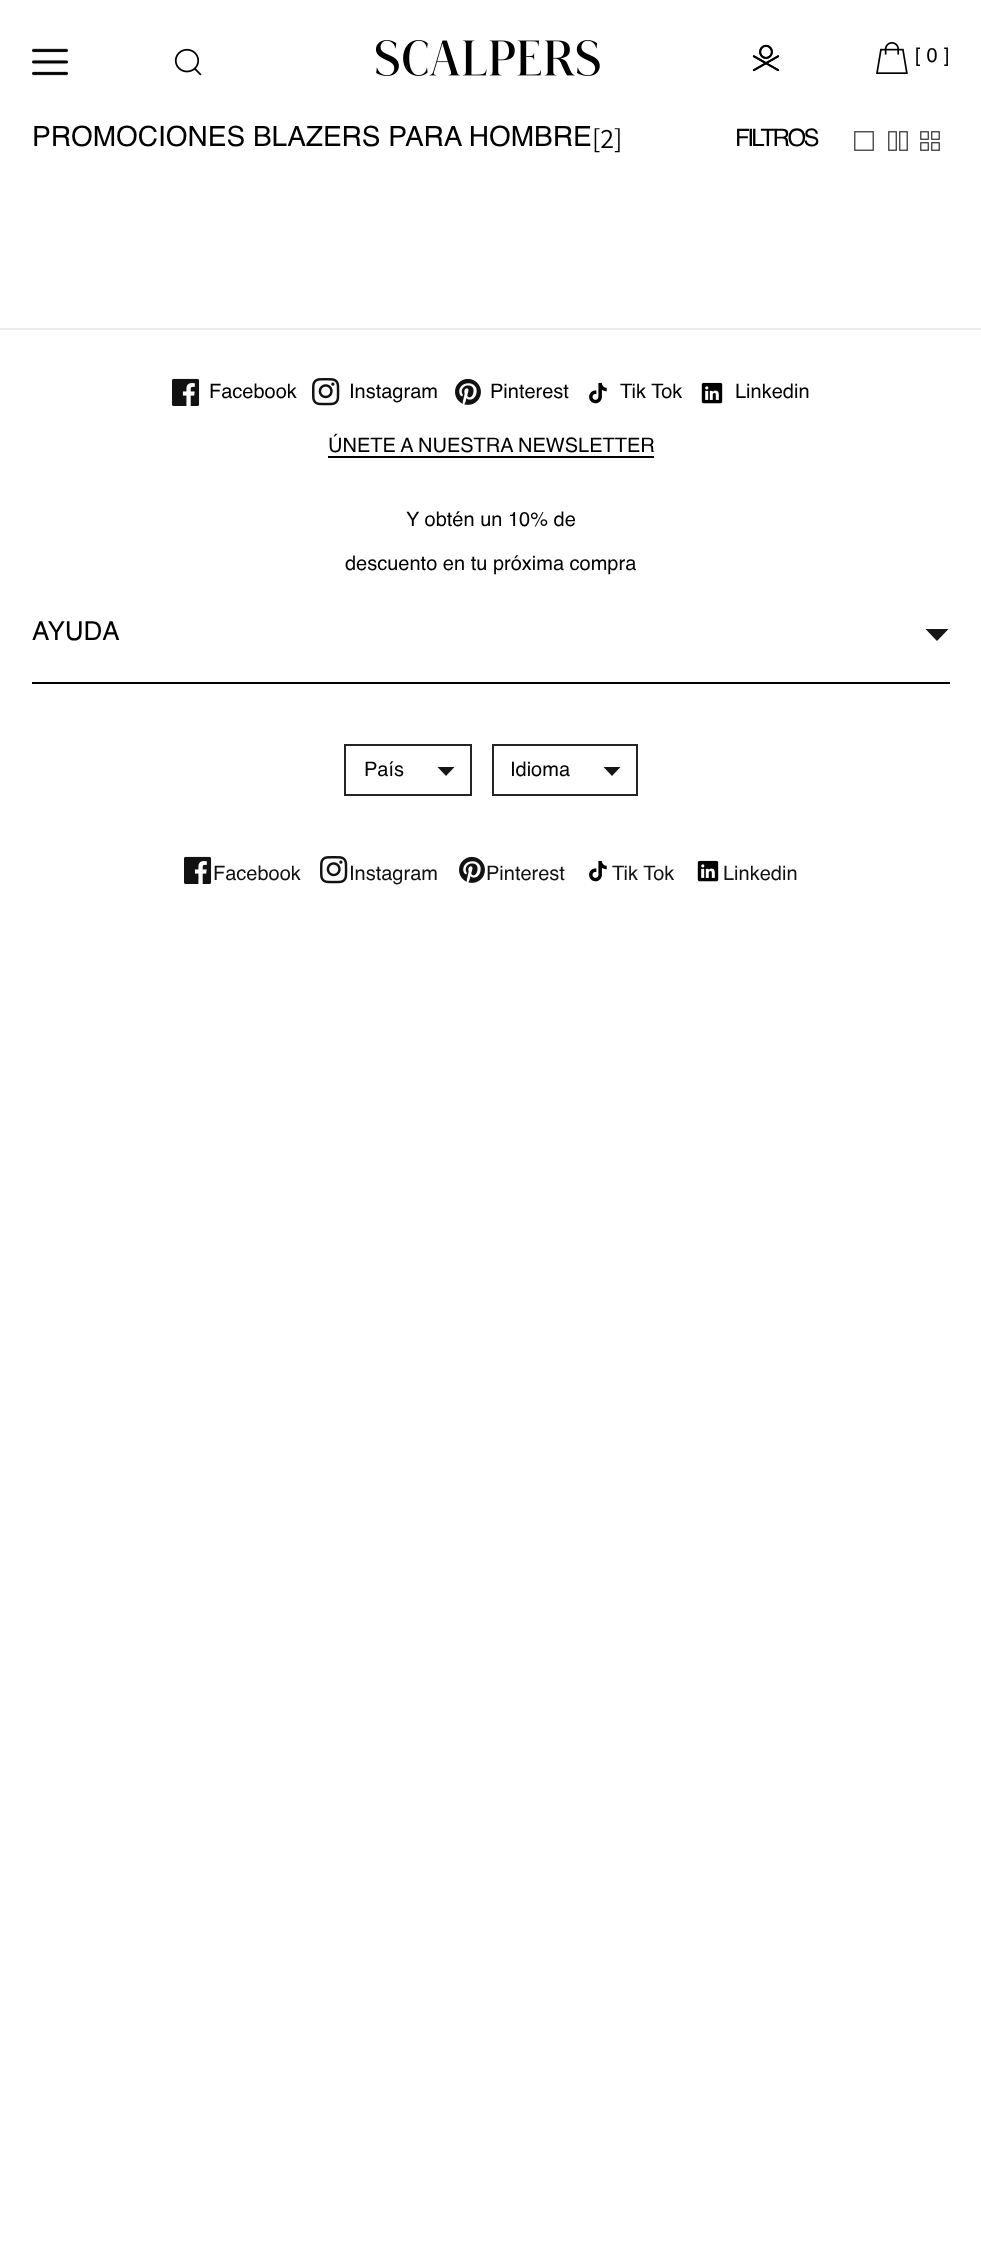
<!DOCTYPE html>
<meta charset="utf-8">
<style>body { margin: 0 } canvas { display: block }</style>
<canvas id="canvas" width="981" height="2245"></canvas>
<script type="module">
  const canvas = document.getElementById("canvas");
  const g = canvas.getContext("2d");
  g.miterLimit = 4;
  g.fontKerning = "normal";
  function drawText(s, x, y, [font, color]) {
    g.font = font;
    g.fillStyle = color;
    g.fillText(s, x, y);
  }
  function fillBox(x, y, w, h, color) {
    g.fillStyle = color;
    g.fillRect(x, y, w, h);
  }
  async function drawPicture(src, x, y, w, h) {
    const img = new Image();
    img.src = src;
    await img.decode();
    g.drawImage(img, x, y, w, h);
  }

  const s1 = ["20px Helvetica", "#000000"];
  const s2 = ["28px Helvetica", "#000000"];
  const s3 = ["28px Assistant", "#000000"];
  const s4 = ["24px Helvetica", "#000000"];
  const s5 = ["26px Helvetica", "#000000"];
  const s6 = ["20px Helvetica", "#121212"];

  fillBox(0, 0, 981, 2245, "#FFFFFF");
  await drawPicture("pic1.png", 32, 48, 36, 28);
  await drawPicture("pic2.png", 174, 48, 28, 28);
  await drawPicture("pic3.png", 375, 40, 225, 36);
  await drawPicture("pic4.png", 752, 44, 28, 28);
  await drawPicture("pic5.png", 876, 42, 32, 32);
  g.letterSpacing = "0.25px";
  drawText("[ 0 ]", 915, 62, s1);
  g.letterSpacing = "0px";
  drawText("PROMOCIONES BLAZERS PARA HOMBRE", 32, 146, s2);
  drawText("[2]", 592, 148, s3);
  g.letterSpacing = "-2.5px";
  drawText("FILTROS", 735, 146, s4);
  await drawPicture("pic6.png", 854, 131, 20, 20);
  await drawPicture("pic7.png", 888, 131, 20, 20);
  await drawPicture("pic8.png", 920, 131, 20, 20);
  fillBox(0, 328, 981, 2, "#ECECEC");
  await drawPicture("pic9.png", 172, 378, 28, 28);
  g.letterSpacing = "0px";
  drawText("Facebook", 209, 398, s1);
  await drawPicture("pic10.png", 312, 378, 28, 28);
  drawText("Instagram", 349, 398, s1);
  await drawPicture("pic11.png", 455, 378, 26, 27);
  drawText("Pinterest", 490, 398, s1);
  await drawPicture("pic12.png", 589, 382, 18, 22);
  drawText("Tik Tok", 620, 398, s1);
  await drawPicture("pic13.png", 701, 382, 22, 22);
  drawText("Linkedin", 735, 398, s1);
  fillBox(328, 456, 326, 2, "#000000");
  drawText("ÚNETE A NUESTRA NEWSLETTER", 328, 452, s1);
  drawText("Y obtén un 10% de", 406, 526, s1);
  drawText("descuento en tu próxima compra", 345, 570, s1);
  fillBox(32, 682, 918, 2, "#000000");
  drawText("AYUDA", 32, 640, s5);
  g.fillStyle = "#161616";
  g.beginPath();
  g.moveTo(937, 641);
  g.lineTo(925.5, 629);
  g.lineTo(948.5, 629);
  g.closePath();
  g.fill();
  g.strokeStyle = "#262424";
  g.lineWidth = 2;
  g.strokeRect(345, 745, 126, 50);
  drawText("País", 364, 776, s1);
  g.fillStyle = "#161616";
  g.beginPath();
  g.moveTo(446, 776);
  g.lineTo(437.5, 767);
  g.lineTo(454.5, 767);
  g.closePath();
  g.fill();
  g.strokeRect(493, 745, 144, 50);
  drawText("Idioma", 510, 776, s1);
  g.fillStyle = "#161616";
  g.beginPath();
  g.moveTo(612, 776);
  g.lineTo(603.5, 767);
  g.lineTo(620.5, 767);
  g.closePath();
  g.fill();
  await drawPicture("pic9.png", 184, 856, 28, 28);
  drawText("Facebook", 213, 880, s6);
  await drawPicture("pic10.png", 320, 856, 28, 28);
  drawText("Instagram", 349, 880, s6);
  await drawPicture("pic11.png", 459, 856, 26, 27);
  drawText("Pinterest", 486, 880, s6);
  await drawPicture("pic12.png", 589, 860, 18, 22);
  drawText("Tik Tok", 612, 880, s6);
  await drawPicture("pic13.png", 697, 860, 22, 22);
  drawText("Linkedin", 723, 880, s6);
</script>
